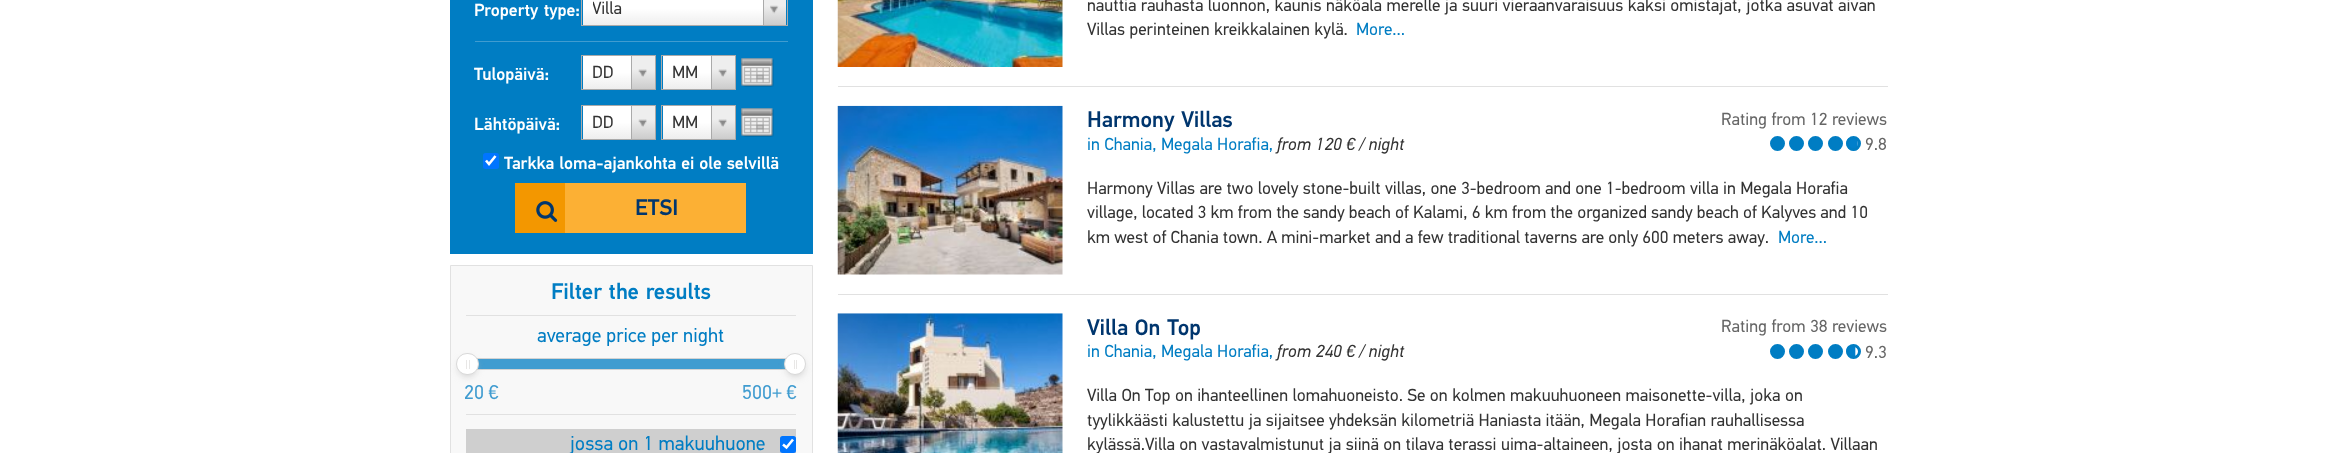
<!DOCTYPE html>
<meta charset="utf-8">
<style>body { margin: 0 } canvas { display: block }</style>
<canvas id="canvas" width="2336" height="453"></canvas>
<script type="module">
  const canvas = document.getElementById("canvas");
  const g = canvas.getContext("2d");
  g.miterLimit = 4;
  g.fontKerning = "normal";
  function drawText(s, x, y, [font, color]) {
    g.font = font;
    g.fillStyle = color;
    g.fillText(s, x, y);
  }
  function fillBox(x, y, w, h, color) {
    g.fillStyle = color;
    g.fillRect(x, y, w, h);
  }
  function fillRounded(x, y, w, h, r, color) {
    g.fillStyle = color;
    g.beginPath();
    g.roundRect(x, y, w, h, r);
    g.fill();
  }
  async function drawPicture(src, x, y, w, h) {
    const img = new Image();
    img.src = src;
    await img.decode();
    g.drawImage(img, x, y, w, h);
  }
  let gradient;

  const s1 = ["500 17.5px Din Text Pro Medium", "#FFFFFF"];
  const s2 = ["17.5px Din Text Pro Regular", "#333333"];
  const s3 = ["500 22.5px Din Text Pro Medium", "#00366E"];
  const s4 = ["500 22.5px Din Text Pro Medium", "#007DC3"];
  const s5 = ["20px Din Text Pro Regular", "#007DC3"];
  const s6 = ["20px Din Text Pro Regular", "#409CD0"];
  const s7 = ["17.5px Din Text Pro Regular", "#007DC3"];
  const s8 = ["italic 17.5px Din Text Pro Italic", "#333333"];
  const s9 = ["17.5px Din Text Pro Regular", "#666666"];

  fillBox(0, 0, 2336, 453, "#FFFFFF");
  fillBox(450, 0, 363, 254, "#007DC3");
  fillBox(475, 41, 313, 1, "#409CD0");
  g.wordSpacing = "1px";
  drawText("Property type:", 474, 16, s1);
  gradient = g.createLinearGradient(583, 25, 583, -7.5);
  gradient.addColorStop(0, "#EEEEEE");
  gradient.addColorStop(0.5, "#FFFFFF");
  g.fillStyle = gradient;
  g.fillRect(583, 0, 180, 25);
  g.strokeStyle = "#AAAAAA";
  g.strokeRect(581.5, -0.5, 206, 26);
  g.save();
  g.beginPath();
  g.rect(593, 0, 161, 25);
  g.clip();
  g.wordSpacing = "0px";
  drawText("Villa", 592, 14, s2);
  g.restore();
  gradient = g.createLinearGradient(764, 25, 764, -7.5);
  gradient.addColorStop(0, "#CCCCCC");
  gradient.addColorStop(0.6, "#EEEEEE");
  g.fillStyle = gradient;
  g.fillRect(764, 0, 22, 25);
  fillBox(763, 0, 1, 25, "#AAAAAA");
  await drawPicture("pic1.png", 770, 5, 9, 9);
  g.wordSpacing = "0px";
  drawText("Tulopäivä:", 474, 80, s1);
  gradient = g.createLinearGradient(583, 89, 583, 56);
  gradient.addColorStop(0, "#EEEEEE");
  gradient.addColorStop(0.5, "#FFFFFF");
  g.fillStyle = gradient;
  g.fillRect(583, 56, 48, 33);
  g.strokeRect(581.5, 55.5, 74, 34);
  drawText("DD", 592, 78, s2);
  gradient = g.createLinearGradient(633, 89, 633, 56);
  gradient.addColorStop(0, "#CCCCCC");
  gradient.addColorStop(0.6, "#EEEEEE");
  g.fillStyle = gradient;
  g.fillRect(632, 56, 23, 33);
  fillBox(631, 56, 1, 33, "#AAAAAA");
  await drawPicture("pic2.png", 638, 69, 9, 8);
  gradient = g.createLinearGradient(663, 89, 663, 56);
  gradient.addColorStop(0, "#EEEEEE");
  gradient.addColorStop(0.5, "#FFFFFF");
  g.fillStyle = gradient;
  g.fillRect(663, 56, 48, 33);
  g.strokeRect(661.5, 55.5, 74, 34);
  drawText("MM", 672, 78, s2);
  gradient = g.createLinearGradient(713, 89, 713, 56);
  gradient.addColorStop(0, "#CCCCCC");
  gradient.addColorStop(0.6, "#EEEEEE");
  g.fillStyle = gradient;
  g.fillRect(712, 56, 23, 33);
  fillBox(711, 56, 1, 33, "#AAAAAA");
  await drawPicture("pic2.png", 718, 69, 9, 8);
  await drawPicture("pic3.png", 741, 58, 33, 29);
  drawText("Lähtöpäivä:", 474, 130, s1);
  gradient = g.createLinearGradient(583, 139, 583, 106);
  gradient.addColorStop(0, "#EEEEEE");
  gradient.addColorStop(0.5, "#FFFFFF");
  g.fillStyle = gradient;
  g.fillRect(583, 106, 48, 33);
  g.strokeRect(581.5, 105.5, 74, 34);
  drawText("DD", 592, 128, s2);
  gradient = g.createLinearGradient(633, 139, 633, 106);
  gradient.addColorStop(0, "#CCCCCC");
  gradient.addColorStop(0.6, "#EEEEEE");
  g.fillStyle = gradient;
  g.fillRect(632, 106, 23, 33);
  fillBox(631, 106, 1, 33, "#AAAAAA");
  await drawPicture("pic2.png", 638, 119, 9, 8);
  gradient = g.createLinearGradient(663, 139, 663, 106);
  gradient.addColorStop(0, "#EEEEEE");
  gradient.addColorStop(0.5, "#FFFFFF");
  g.fillStyle = gradient;
  g.fillRect(663, 106, 48, 33);
  g.strokeRect(661.5, 105.5, 74, 34);
  drawText("MM", 672, 128, s2);
  gradient = g.createLinearGradient(713, 139, 713, 106);
  gradient.addColorStop(0, "#CCCCCC");
  gradient.addColorStop(0.6, "#EEEEEE");
  g.fillStyle = gradient;
  g.fillRect(712, 106, 23, 33);
  fillBox(711, 106, 1, 33, "#AAAAAA");
  await drawPicture("pic2.png", 718, 119, 9, 8);
  await drawPicture("pic3.png", 741, 108, 33, 29);
  fillRounded(483, 153, 16, 16, 2.5, "#0075FF");
  g.beginPath();
  g.moveTo(486, 160.5);
  g.lineTo(489, 164);
  g.lineTo(495.5, 156);
  g.strokeStyle = "#FFFFFF";
  g.lineWidth = 2.6;
  g.stroke();
  g.wordSpacing = "0.5px";
  drawText("Tarkka loma-ajankohta ei ole selvillä", 504, 169, s1);
  fillBox(565, 183, 181, 50, "#FCB034");
  fillBox(515, 183, 50, 50, "#F39700");
  await drawPicture("pic4.png", 536, 201, 22, 21);
  g.wordSpacing = "0px";
  drawText("ETSI", 635, 215, s3);
  g.fillStyle = "#F8F8F8";
  g.beginPath();
  g.rect(450.5, 265.5, 362, 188);
  g.fill();
  g.strokeStyle = "#E1E1E1";
  g.lineWidth = 1;
  g.stroke();
  fillBox(466, 315, 330, 1, "#E1E1E1");
  g.wordSpacing = "1px";
  drawText("Filter the results", 551, 299, s4);
  g.wordSpacing = "0.5px";
  drawText("average price per night", 537, 342, s5);
  g.strokeStyle = "#D3D3D3";
  g.strokeRect(466.5, 358.5, 329, 11);
  fillBox(477, 359, 309, 10, "#409CD0");
  g.fillStyle = "#BBBBBB";
  g.filter = "blur(4px)";
  g.beginPath();
  g.roundRect(460, 360, 15, 15, 7.5);
  g.fill();
  g.filter = "none";
  g.fillStyle = "#FFFFFF";
  g.beginPath();
  g.roundRect(456.5, 353.5, 22, 21, 10.5);
  g.fill();
  g.strokeStyle = "#D9D9D9";
  g.stroke();
  fillBox(466, 360, 1, 9, "#E8E7E6");
  fillBox(469, 360, 1, 9, "#E8E7E6");
  g.fillStyle = "#BBBBBB";
  g.filter = "blur(4px)";
  g.beginPath();
  g.roundRect(788, 360, 15, 15, 7.5);
  g.fill();
  g.filter = "none";
  g.fillStyle = "#FFFFFF";
  g.beginPath();
  g.arc(795, 364, 10.5, 0, Math.PI * 2);
  g.fill();
  g.stroke();
  fillBox(794, 360, 1, 9, "#E8E7E6");
  fillBox(796, 360, 1, 9, "#E8E7E6");
  g.wordSpacing = "0px";
  drawText("20 €", 464, 399, s6);
  drawText("500+ €", 742, 399, s6);
  fillBox(466, 414, 330, 1, "#E1E1E1");
  fillBox(466, 429, 330, 24, "#CFCFCF");
  g.wordSpacing = "0.5px";
  drawText("jossa on 1 makuuhuone", 570, 450, s5);
  fillRounded(780, 436, 16, 17, 2.5, "#0075FF");
  g.beginPath();
  g.moveTo(783, 444.5);
  g.lineTo(786.5, 447.5);
  g.lineTo(793, 439.5);
  g.strokeStyle = "#FFFFFF";
  g.lineWidth = 2.6;
  g.stroke();
  fillBox(838, 86, 1050, 1, "#E1E1E1");
  await drawPicture("pic5.png", 837, 0, 226, 67);
  drawText("nauttia rauhasta luonnon, kaunis näköala merelle ja suuri vieraanvaraisuus kaksi omistajat, jotka asuvat aivan", 1087, 11, s2);
  drawText("Villas perinteinen kreikkalainen kylä.", 1087, 35, s2);
  g.wordSpacing = "0px";
  drawText("More...", 1356, 35, s7);
  fillBox(838, 294, 1050, 1, "#E1E1E1");
  await drawPicture("pic6.png", 837, 105, 226, 170);
  g.wordSpacing = "1px";
  drawText("Harmony Villas", 1087, 127, s3);
  g.wordSpacing = "0.5px";
  drawText("in Chania, Megala Horafia,", 1087, 150, s7);
  g.wordSpacing = "0px";
  drawText("from", 1277, 150, s8);
  drawText("120 €", 1316, 150, s8);
  drawText("/ night", 1359, 150, s8);
  g.wordSpacing = "0.5px";
  drawText("Rating from 12 reviews", 1721, 125, s9);
  g.fillStyle = "#007DC3";
  g.beginPath();
  g.arc(1777.5, 143.5, 6, 0, Math.PI * 2);
  g.fill();
  g.strokeStyle = "#007DC3";
  g.lineWidth = 3;
  g.stroke();
  g.beginPath();
  g.arc(1796.5, 143.5, 6, 0, Math.PI * 2);
  g.fill();
  g.stroke();
  g.beginPath();
  g.arc(1815.5, 143.5, 6, 0, Math.PI * 2);
  g.fill();
  g.stroke();
  g.beginPath();
  g.arc(1835.5, 143.5, 6, 0, Math.PI * 2);
  g.fill();
  g.stroke();
  await drawPicture("pic7.png", 1846, 138, 12, 13);
  g.beginPath();
  g.arc(1853.5, 143.5, 6, 0, Math.PI * 2);
  g.stroke();
  g.wordSpacing = "0px";
  drawText("9.8", 1865, 150, s9);
  g.wordSpacing = "0.4px";
  drawText("Harmony Villas are two lovely stone-built villas, one 3-bedroom and one 1-bedroom villa in Megala Horafia", 1087, 194, s2);
  g.wordSpacing = "0.25px";
  drawText("village, located 3 km from the sandy beach of Kalami, 6 km from the organized sandy beach of Kalyves and 10", 1087, 218, s2);
  drawText("km west of Chania town. A mini-market and a few traditional taverns are only 600 meters away.", 1087, 243, s2);
  g.wordSpacing = "0px";
  drawText("More...", 1778, 243, s7);
  await drawPicture("pic8.png", 837, 313, 226, 140);
  g.wordSpacing = "1px";
  drawText("Villa On Top", 1087, 335, s3);
  g.wordSpacing = "0.5px";
  drawText("in Chania, Megala Horafia,", 1087, 357, s7);
  g.wordSpacing = "0px";
  drawText("from", 1277, 357, s8);
  drawText("240 €", 1316, 357, s8);
  drawText("/ night", 1359, 357, s8);
  g.wordSpacing = "0.5px";
  drawText("Rating from 38 reviews", 1721, 332, s9);
  g.fillStyle = "#007DC3";
  g.beginPath();
  g.arc(1777.5, 351.5, 6, 0, Math.PI * 2);
  g.fill();
  g.stroke();
  g.beginPath();
  g.arc(1796.5, 351.5, 6, 0, Math.PI * 2);
  g.fill();
  g.stroke();
  g.beginPath();
  g.arc(1815.5, 351.5, 6, 0, Math.PI * 2);
  g.fill();
  g.stroke();
  g.beginPath();
  g.arc(1835.5, 351.5, 6, 0, Math.PI * 2);
  g.fill();
  g.stroke();
  await drawPicture("pic9.png", 1846, 345, 10, 14);
  g.beginPath();
  g.arc(1853.5, 351.5, 6, 0, Math.PI * 2);
  g.stroke();
  g.wordSpacing = "0px";
  drawText("9.3", 1865, 358, s9);
  g.wordSpacing = "0.5px";
  drawText("Villa On Top on ihanteellinen lomahuoneisto. Se on kolmen makuuhuoneen maisonette-villa, joka on", 1087, 401, s2);
  drawText("tyylikkäästi kalustettu ja sijaitsee yhdeksän kilometriä Haniasta itään, Megala Horafian rauhallisessa", 1087, 426, s2);
  drawText("kylässä.Villa on vastavalmistunut ja siinä on tilava terassi uima-altaineen, josta on ihanat merinäköalat. Villaan", 1087, 450, s2);
</script>
